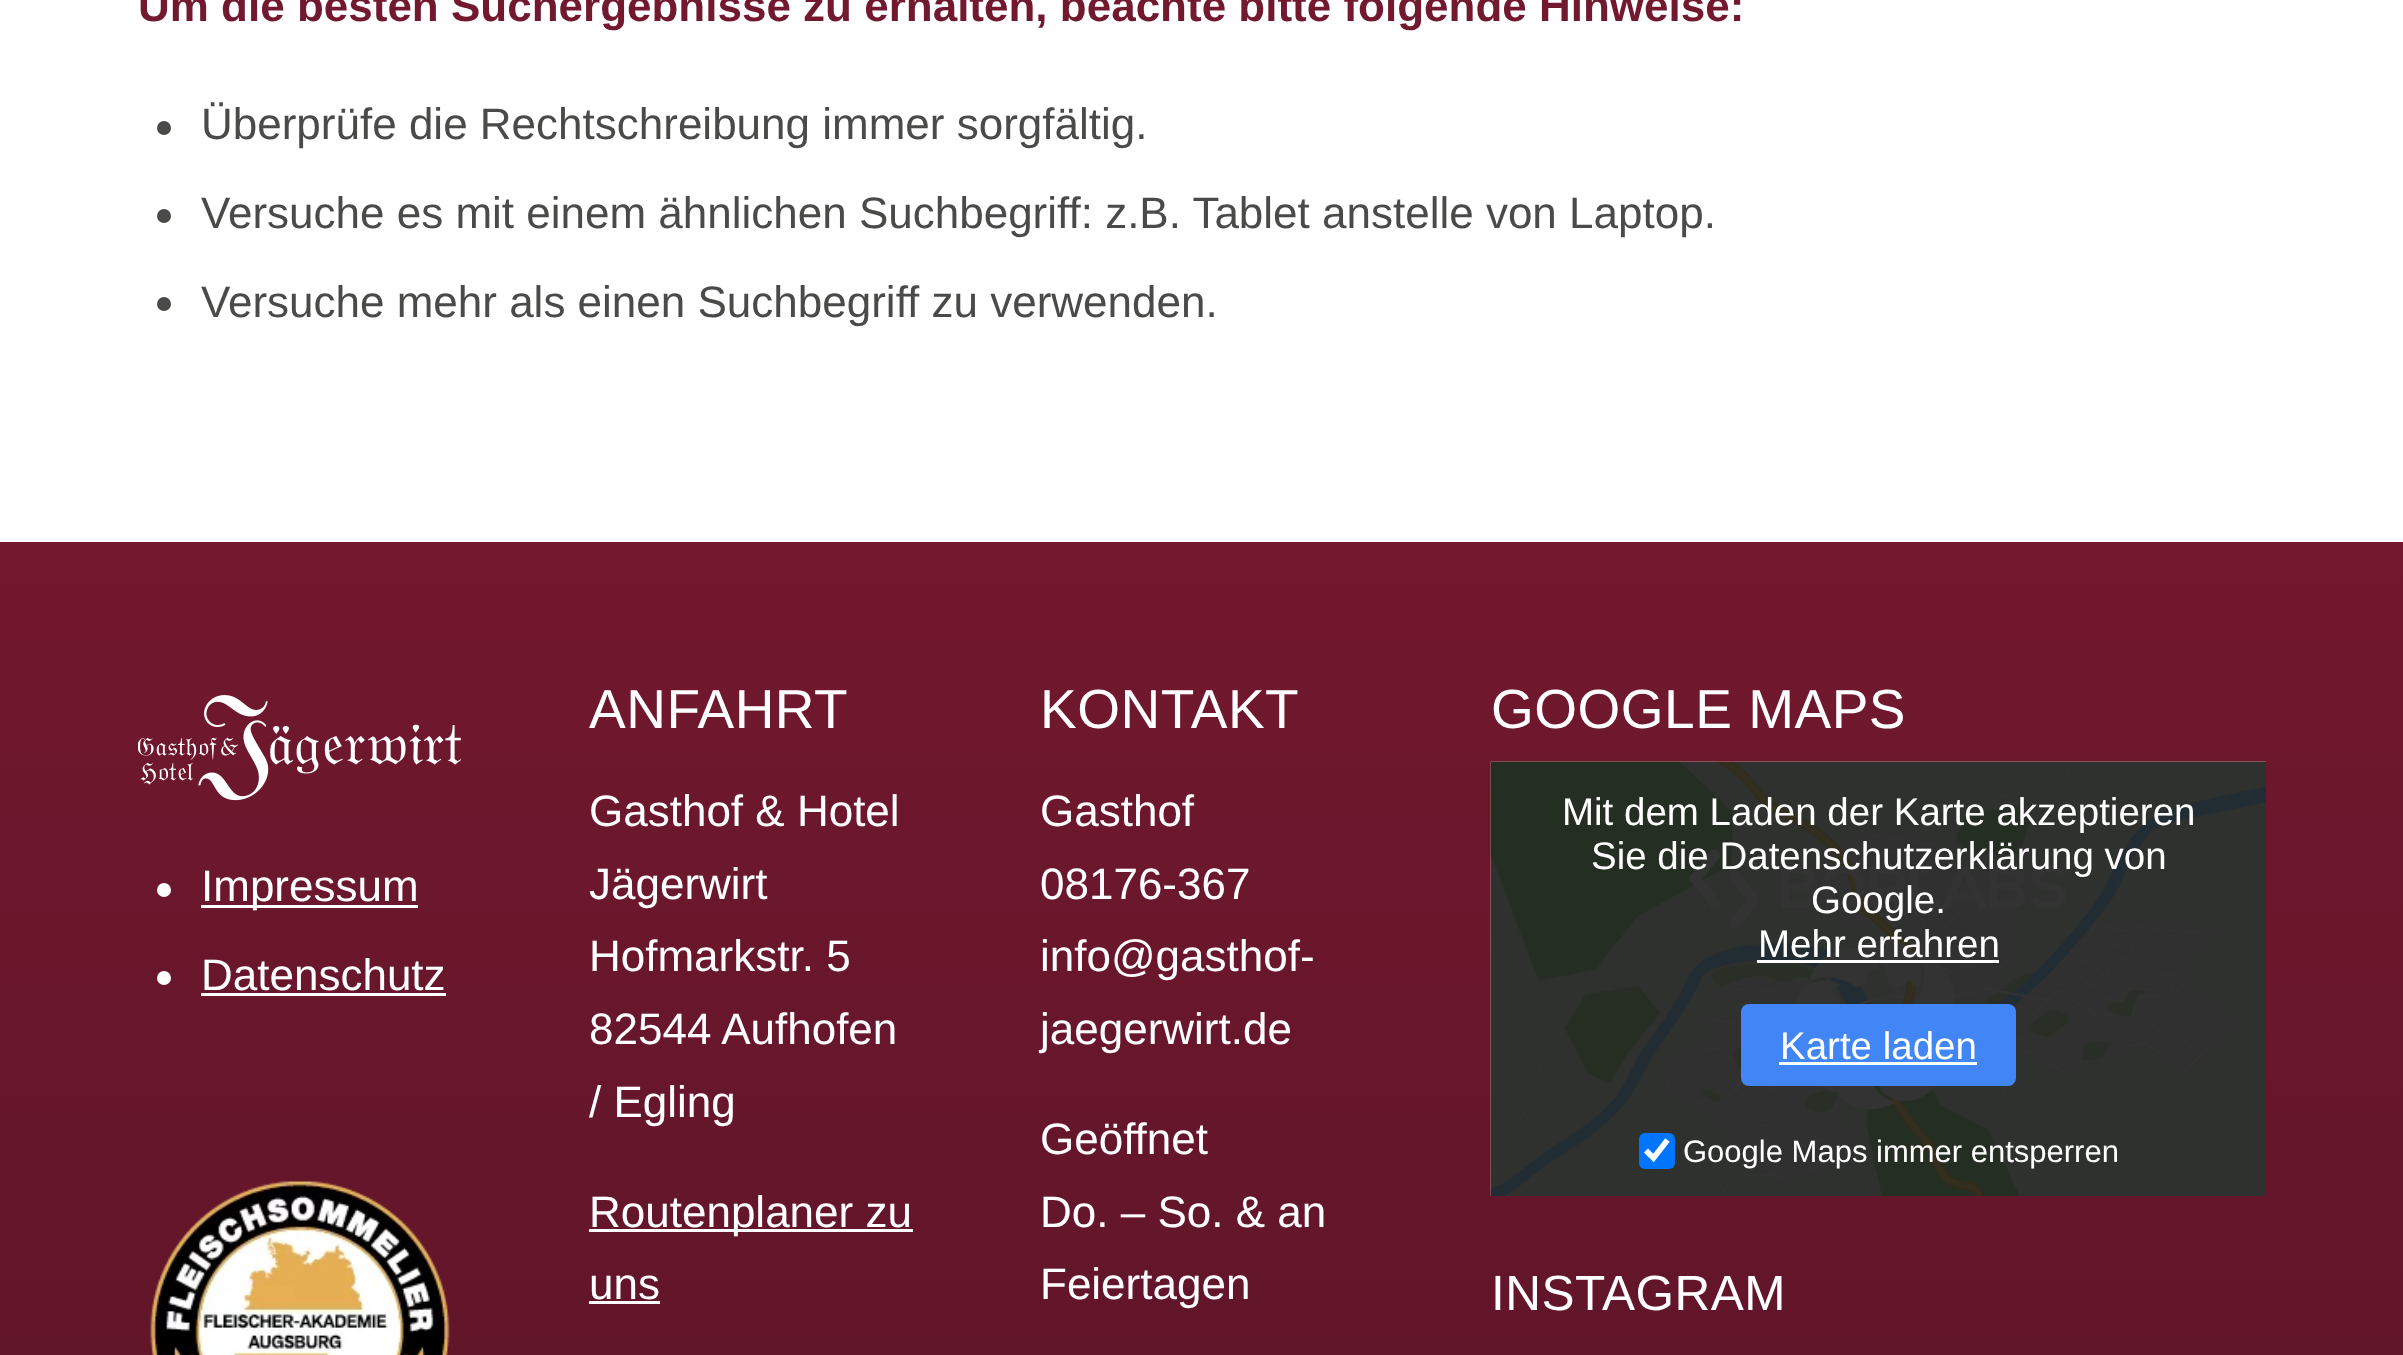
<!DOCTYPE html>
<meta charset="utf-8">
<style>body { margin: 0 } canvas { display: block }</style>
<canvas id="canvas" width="2403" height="1355"></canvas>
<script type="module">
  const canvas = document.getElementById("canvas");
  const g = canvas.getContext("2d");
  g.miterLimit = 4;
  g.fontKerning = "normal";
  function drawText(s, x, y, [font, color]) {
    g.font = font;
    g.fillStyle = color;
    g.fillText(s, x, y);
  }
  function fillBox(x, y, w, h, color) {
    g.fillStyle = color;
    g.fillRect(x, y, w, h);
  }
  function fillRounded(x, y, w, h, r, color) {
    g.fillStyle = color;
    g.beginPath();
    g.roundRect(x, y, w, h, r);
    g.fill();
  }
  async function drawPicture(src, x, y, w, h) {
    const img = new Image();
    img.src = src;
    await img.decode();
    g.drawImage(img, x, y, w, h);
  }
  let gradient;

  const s1 = ["bold 44px Liberation Sans", "#72182F"];
  const s2 = ["44px Liberation Sans", "#4A4A49"];
  const s3 = ["44px Liberation Sans", "#FFFFFF"];
  const s4 = ["55px Liberation Sans", "#FFFFFF"];
  const s5 = ["38.5px Liberation Sans", "#FFFFFF"];
  const s6 = ["31px Liberation Sans", "#FFFFFF"];
  const s7 = ["49.5px Liberation Sans", "#FFFFFF"];

  fillBox(0, 0, 2403, 1355, "#FFFFFF");
  drawText("Um die besten Suchergebnisse zu erhalten, beachte bitte folgende Hinweise:", 138, 21, s1);
  g.fillStyle = "#4A4A49";
  g.beginPath();
  g.arc(164, 128, 7, 0, Math.PI * 2);
  g.fill();
  drawText("Überprüfe die Rechtschreibung immer sorgfältig.", 201, 139, s2);
  g.beginPath();
  g.arc(164, 216, 7, 0, Math.PI * 2);
  g.fill();
  drawText("Versuche es mit einem ähnlichen Suchbegriff: z.B. Tablet anstelle von Laptop.", 201, 228, s2);
  g.beginPath();
  g.arc(164, 304, 7, 0, Math.PI * 2);
  g.fill();
  drawText("Versuche mehr als einen Suchbegriff zu verwenden.", 201, 317, s2);
  gradient = g.createLinearGradient(1202, 542, 1202, 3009);
  gradient.addColorStop(0, "#72182F");
  gradient.addColorStop(1, "#40101D");
  g.fillStyle = gradient;
  g.fillRect(0, 542, 2403, 813);
  await drawPicture("pic1.png", 138, 695, 323, 106);
  g.fillStyle = "#FFFFFF";
  g.beginPath();
  g.arc(164, 890, 7, 0, Math.PI * 2);
  g.fill();
  fillBox(201, 905, 217, 3, "#FFFFFF");
  drawText("Impressum", 201, 901, s3);
  g.beginPath();
  g.arc(164, 978, 7, 0, Math.PI * 2);
  g.fill();
  drawText("Datenschutz", 201, 990, s3);
  fillBox(201, 993, 245, 3, "#FFFFFF");
  await drawPicture("pic2.png", 150, 1181, 300, 174);
  g.letterSpacing = "0.5px";
  drawText("ANFAHRT", 589, 728, s4);
  g.letterSpacing = "0px";
  drawText("Gasthof & Hotel", 589, 826, s3);
  drawText("Jägerwirt", 589, 899, s3);
  drawText("Hofmarkstr. 5", 589, 971, s3);
  drawText("82544 Aufhofen", 589, 1044, s3);
  drawText("/ Egling", 589, 1117, s3);
  fillBox(589, 1229, 324, 3, "#FFFFFF");
  drawText("Routenplaner zu", 589, 1227, s3);
  drawText("uns", 589, 1299, s3);
  fillBox(589, 1301, 71, 3, "#FFFFFF");
  g.letterSpacing = "0.5px";
  drawText("KONTAKT", 1040, 728, s4);
  g.letterSpacing = "0px";
  drawText("Gasthof", 1040, 826, s3);
  drawText("08176-367", 1040, 899, s3);
  drawText("info@gasthof-", 1040, 971, s3);
  drawText("jaegerwirt.de", 1040, 1044, s3);
  drawText("Geöffnet", 1040, 1154, s3);
  drawText("Do. – So. & an", 1040, 1227, s3);
  drawText("Feiertagen", 1040, 1299, s3);
  g.letterSpacing = "0.5px";
  drawText("GOOGLE MAPS", 1491, 728, s4);
  await drawPicture("pic3.png", 1490, 761, 776, 435);
  g.letterSpacing = "0px";
  drawText("Mit dem Laden der Karte akzeptieren", 1562, 825, s5);
  drawText("Sie die Datenschutzerklärung von", 1591, 869, s5);
  drawText("Google.", 1811, 913, s5);
  drawText("Mehr erfahren", 1758, 957, s5);
  fillBox(1757, 960, 242, 3, "#FFFFFF");
  fillRounded(1741, 1004, 275, 82, 8, "#4285F4");
  drawText("Karte laden", 1780, 1059, s5);
  fillBox(1779, 1062, 198, 3, "#FFFFFF");
  fillRounded(1639, 1133, 36, 36, 6, "#0075FF");
  g.beginPath();
  g.moveTo(1646, 1150.5);
  g.lineTo(1653.5, 1158);
  g.lineTo(1667.5, 1140);
  g.strokeStyle = "#FFFFFF";
  g.lineWidth = 5.7;
  g.stroke();
  drawText("Google Maps immer entsperren", 1683, 1162, s6);
  g.letterSpacing = "0.5px";
  drawText("INSTAGRAM", 1491, 1310, s7);
</script>
